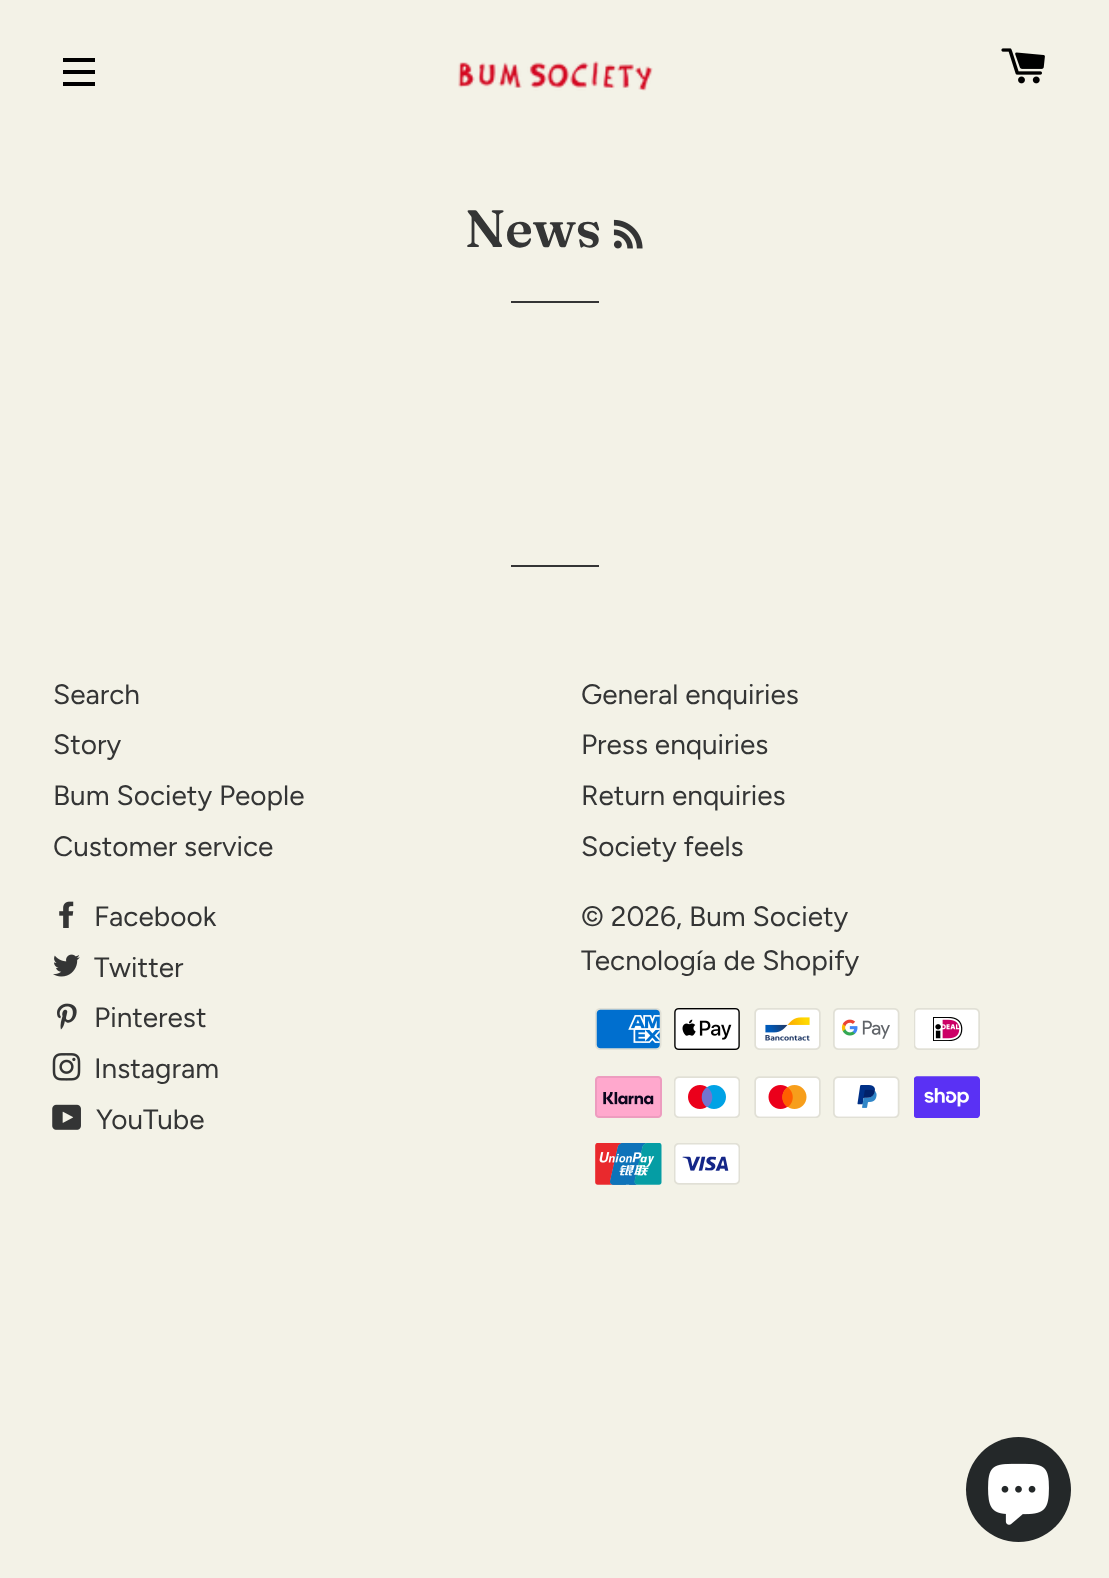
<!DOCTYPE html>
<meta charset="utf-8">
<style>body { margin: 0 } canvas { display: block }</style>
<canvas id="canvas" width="1109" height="1578"></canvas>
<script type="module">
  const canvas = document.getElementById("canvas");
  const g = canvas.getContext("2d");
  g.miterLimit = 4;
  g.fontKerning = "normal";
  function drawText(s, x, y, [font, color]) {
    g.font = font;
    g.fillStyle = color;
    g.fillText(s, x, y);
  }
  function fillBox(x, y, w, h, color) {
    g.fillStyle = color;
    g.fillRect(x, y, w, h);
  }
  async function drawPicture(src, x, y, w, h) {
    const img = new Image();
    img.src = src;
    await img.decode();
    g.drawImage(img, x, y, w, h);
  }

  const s1 = ["600 52.5px Fraunces", "#343535"];
  const s2 = ["28px Figtree", "#343535"];

  fillBox(0, 0, 1109, 1578, "#F3F2E7");
  fillBox(63, 58, 32, 4, "#000000");
  fillBox(63, 70, 32, 4, "#000000");
  fillBox(63, 82, 32, 4, "#000000");
  await drawPicture("pic1.png", 458, 61, 195, 30);
  await drawPicture("pic2.png", 1001, 48, 44, 36);
  drawText("News", 465, 247, s1);
  await drawPicture("pic3.png", 613, 219, 30, 30);
  fillBox(511, 301, 88, 2, "#343535");
  fillBox(511, 565, 88, 2, "#343535");
  drawText("Search", 53, 704, s2);
  drawText("Story", 53, 754, s2);
  drawText("Bum Society People", 53, 805, s2);
  drawText("Customer service", 53, 856, s2);
  drawText("General enquiries", 581, 704, s2);
  drawText("Press enquiries", 581, 754, s2);
  drawText("Return enquiries", 581, 805, s2);
  drawText("Society feels", 581, 856, s2);
  await drawPicture("pic4.png", 59, 901, 15, 27);
  drawText("Facebook", 94, 926, s2);
  await drawPicture("pic5.png", 53, 954, 27, 23);
  drawText("Twitter", 94, 977, s2);
  await drawPicture("pic6.png", 57, 1003, 20, 27);
  drawText("Pinterest", 94, 1027, s2);
  await drawPicture("pic7.png", 52, 1053, 29, 28);
  drawText("Instagram", 94, 1078, s2);
  await drawPicture("pic8.png", 52, 1104, 29, 26);
  drawText("YouTube", 96, 1129, s2);
  drawText("© 2026, Bum Society", 581, 926, s2);
  drawText("Tecnología de Shopify", 581, 970, s2);
  await drawPicture("pic9.png", 595, 1008, 67, 42);
  await drawPicture("pic10.png", 674, 1008, 66, 42);
  await drawPicture("pic11.png", 754, 1008, 67, 42);
  await drawPicture("pic12.png", 833, 1008, 67, 42);
  await drawPicture("pic13.png", 914, 1008, 66, 42);
  await drawPicture("pic14.png", 595, 1076, 67, 42);
  await drawPicture("pic15.png", 674, 1076, 66, 42);
  await drawPicture("pic16.png", 754, 1076, 67, 42);
  await drawPicture("pic17.png", 833, 1076, 67, 42);
  await drawPicture("pic18.png", 914, 1076, 66, 42);
  await drawPicture("pic19.png", 595, 1143, 67, 42);
  await drawPicture("pic20.png", 674, 1143, 66, 42);
  g.fillStyle = "#242829";
  g.beginPath();
  g.arc(1018.5, 1489.5, 52.5, 0, Math.PI * 2);
  g.fill();
  await drawPicture("pic21.png", 988, 1463, 61, 62);
</script>
